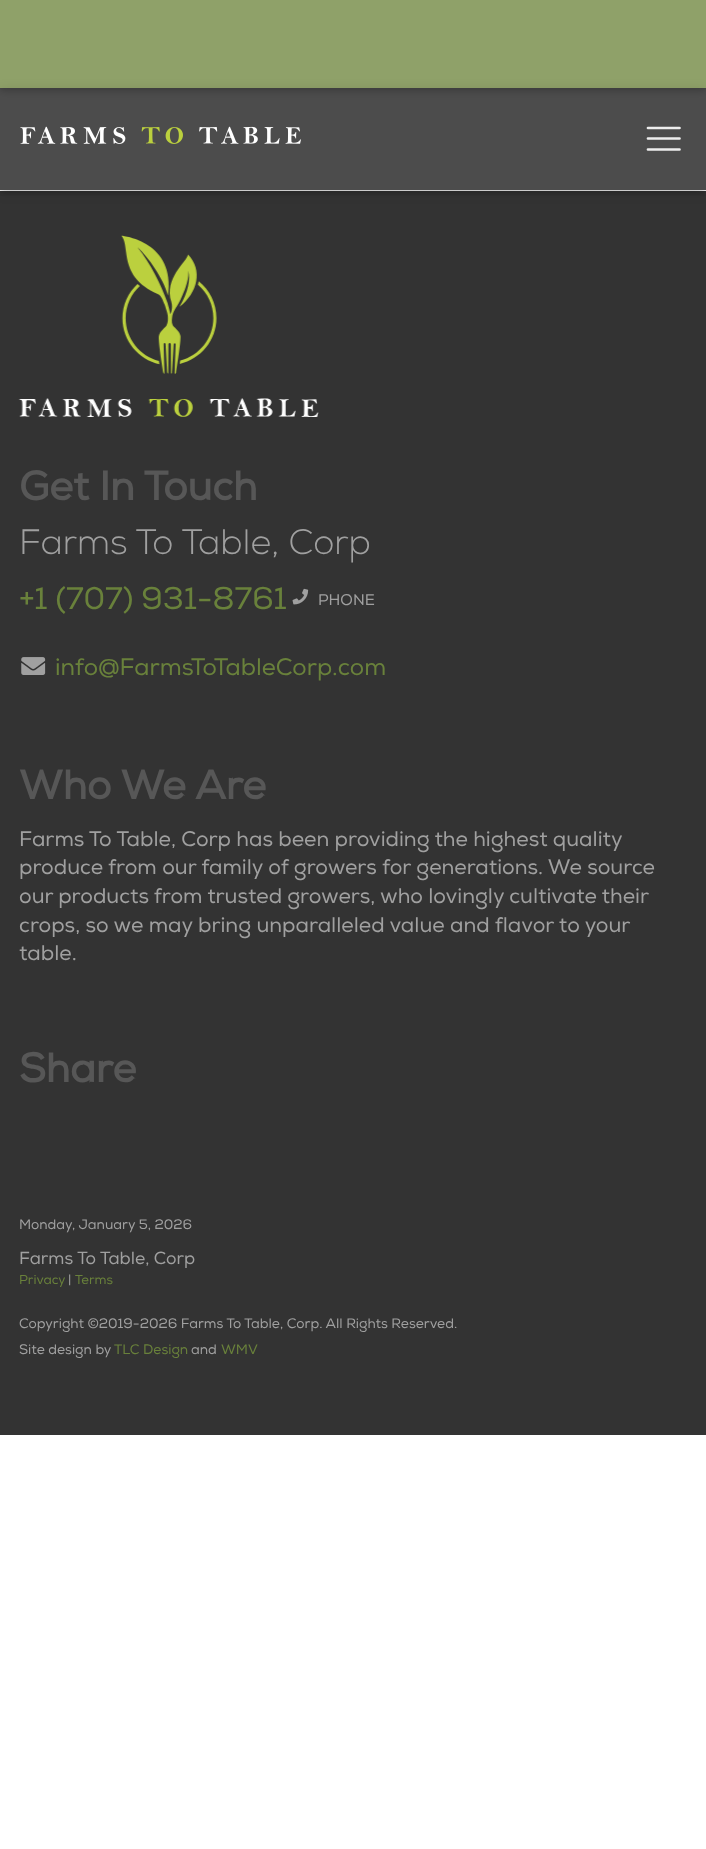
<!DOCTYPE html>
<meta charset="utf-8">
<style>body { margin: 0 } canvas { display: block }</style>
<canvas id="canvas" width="706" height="1849"></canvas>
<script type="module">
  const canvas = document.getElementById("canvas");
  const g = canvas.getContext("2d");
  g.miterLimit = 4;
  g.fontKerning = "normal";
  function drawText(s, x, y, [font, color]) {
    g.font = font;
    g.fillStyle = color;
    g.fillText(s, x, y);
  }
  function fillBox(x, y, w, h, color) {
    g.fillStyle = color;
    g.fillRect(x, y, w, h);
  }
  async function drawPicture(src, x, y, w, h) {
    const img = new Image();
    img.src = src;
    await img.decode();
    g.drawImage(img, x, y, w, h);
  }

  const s1 = ["bold 40.5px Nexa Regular", "#575757"];
  const s2 = ["300 35.25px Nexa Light", "#A0A0A0"];
  const s3 = ["31.25px Nexa Regular", "#69813B"];
  const s4 = ["15.5px Nexa Regular", "#A0A0A0"];
  const s5 = ["23.9px Nexa Regular", "#69813B"];
  const s6 = ["21.1px Nexa Regular", "#A0A0A0"];
  const s7 = ["13.75px Nexa Regular", "#A0A0A0"];
  const s8 = ["17.5px Nexa Regular", "#A0A0A0"];
  const s9 = ["13px Nexa Regular", "#69813B"];
  const s10 = ["13px Nexa Regular", "#A0A0A0"];
  const s11 = ["13.75px Nexa Regular", "#69813B"];

  fillBox(0, 0, 706, 1849, "#FFFFFF");
  g.save();
  g.beginPath();
  g.moveTo(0, 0);
  g.lineTo(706, 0);
  g.lineTo(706, 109);
  g.lineTo(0, 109);
  g.closePath();
  g.moveTo(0, 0);
  g.lineTo(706, 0);
  g.lineTo(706, 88);
  g.lineTo(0, 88);
  g.closePath();
  g.clip("evenodd");
  g.fillStyle = "rgba(0, 0, 0, 0.12)";
  g.filter = "blur(6px)";
  g.beginPath();
  g.rect(0, 3, 706, 87);
  g.fill();
  g.filter = "none";
  g.restore();
  g.save();
  g.beginPath();
  g.moveTo(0, 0);
  g.lineTo(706, 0);
  g.lineTo(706, 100);
  g.lineTo(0, 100);
  g.closePath();
  g.moveTo(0, 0);
  g.lineTo(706, 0);
  g.lineTo(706, 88);
  g.lineTo(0, 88);
  g.closePath();
  g.clip("evenodd");
  g.fillStyle = "rgba(0, 0, 0, 0.16)";
  g.filter = "blur(3px)";
  g.beginPath();
  g.rect(0, 3, 706, 87);
  g.fill();
  g.filter = "none";
  g.restore();
  fillBox(0, 0, 706, 88, "rgba(105, 129, 55, 0.75)");
  fillBox(0, 191, 706, 1244, "#333333");
  g.save();
  g.beginPath();
  g.moveTo(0, 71);
  g.lineTo(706, 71);
  g.lineTo(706, 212);
  g.lineTo(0, 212);
  g.closePath();
  g.moveTo(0, 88);
  g.lineTo(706, 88);
  g.lineTo(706, 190);
  g.lineTo(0, 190);
  g.closePath();
  g.clip("evenodd");
  g.fillStyle = "rgba(0, 0, 0, 0.12)";
  g.filter = "blur(6px)";
  g.beginPath();
  g.rect(0, 90, 706, 103);
  g.fill();
  g.filter = "none";
  g.restore();
  g.save();
  g.beginPath();
  g.rect(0, 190, 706, 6);
  g.clip();
  g.fillStyle = "rgba(0, 0, 0, 0.16)";
  g.filter = "blur(3px)";
  g.beginPath();
  g.rect(0, 90, 706, 103);
  g.fill();
  g.filter = "none";
  g.restore();
  fillBox(0, 88, 706, 102, "rgba(0, 0, 0, 0.7)");
  await drawPicture("pic1.png", 20, 126, 281, 18);
  g.beginPath();
  g.moveTo(648, 128);
  g.lineTo(679.5, 128);
  g.moveTo(648, 138.5);
  g.lineTo(679.5, 138.5);
  g.moveTo(648, 149.5);
  g.lineTo(679.5, 149.5);
  g.strokeStyle = "#EDEDED";
  g.lineWidth = 2.7;
  g.lineCap = "round";
  g.stroke();
  await drawPicture("pic2.png", 18, 235, 301, 182);
  drawText("Get In Touch", 19, 500, s1);
  drawText("Farms To Table, Corp", 19, 554, s2);
  drawText("+1 (707) 931-8761", 19, 609, s3);
  await drawPicture("pic3.png", 292, 588, 17, 17);
  drawText("PHONE", 318, 605, s4);
  await drawPicture("pic4.png", 21, 657, 25, 18);
  drawText("info@FarmsToTableCorp.com", 55, 675, s5);
  drawText("Who We Are", 19, 799, s1);
  g.wordSpacing = "-0.1px";
  drawText("Farms To Table, Corp has been providing the highest quality", 19, 846, s6);
  g.wordSpacing = "0px";
  drawText("produce from our family of growers for generations. We source", 19, 874, s6);
  g.wordSpacing = "-0.25px";
  drawText("our products from trusted growers, who lovingly cultivate their", 19, 903, s6);
  g.wordSpacing = "0px";
  drawText("crops, so we may bring unparalleled value and flavor to your", 19, 932, s6);
  drawText("table.", 19, 960, s6);
  drawText("Share", 19, 1082, s1);
  drawText("Monday, January 5, 2026", 19, 1229, s7);
  drawText("Farms To Table, Corp", 19, 1264, s8);
  drawText("Privacy", 19, 1284, s9);
  drawText("|", 68, 1284, s10);
  drawText("Terms", 75, 1284, s9);
  drawText("Copyright ©2019-2026 Farms To Table, Corp. All Rights Reserved.", 19, 1328, s7);
  drawText("Site design by", 19, 1354, s7);
  drawText("TLC Design", 114, 1354, s11);
  drawText("and", 191, 1354, s7);
  drawText("WMV", 221, 1354, s11);
</script>
